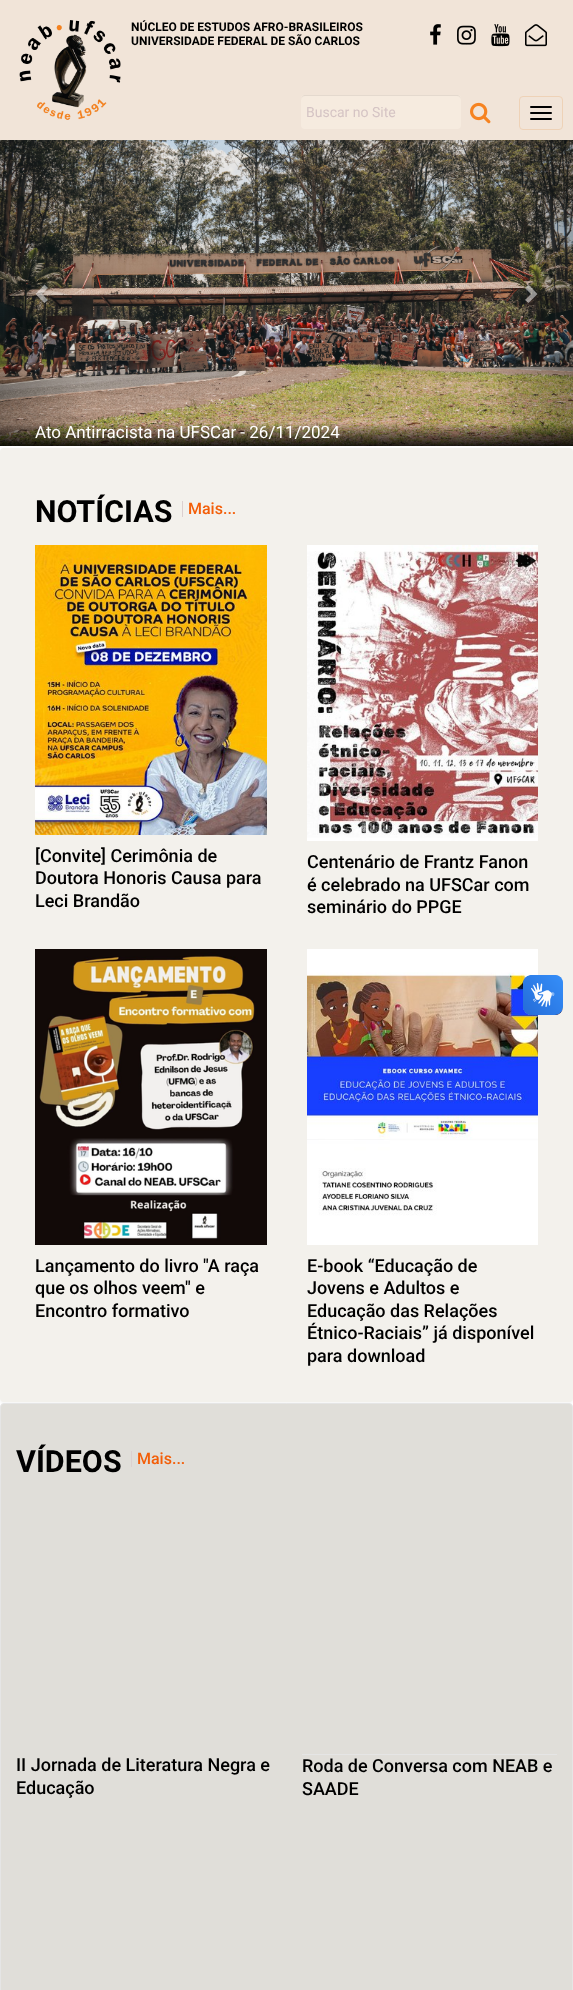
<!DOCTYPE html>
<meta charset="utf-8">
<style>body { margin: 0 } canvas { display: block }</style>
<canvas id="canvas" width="573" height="1990"></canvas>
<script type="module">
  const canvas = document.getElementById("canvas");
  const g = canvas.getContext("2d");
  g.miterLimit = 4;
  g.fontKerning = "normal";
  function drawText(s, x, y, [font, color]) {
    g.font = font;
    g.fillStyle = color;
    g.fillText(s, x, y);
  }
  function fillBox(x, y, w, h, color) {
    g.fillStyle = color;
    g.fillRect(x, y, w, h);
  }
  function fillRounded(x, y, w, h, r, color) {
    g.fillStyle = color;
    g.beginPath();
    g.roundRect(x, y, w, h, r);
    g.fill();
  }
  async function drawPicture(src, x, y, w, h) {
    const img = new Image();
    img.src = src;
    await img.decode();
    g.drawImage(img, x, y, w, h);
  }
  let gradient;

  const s1 = ["bold 12px Roboto", "#000000"];
  const s2 = ["14px Roboto", "#D5C4C4"];
  const s3 = ["17px Roboto", "#FFFFFF"];
  const s4 = ["bold 30.5px Roboto", "#000000"];
  const s5 = ["500 16px Roboto", "#F35E08"];
  const s6 = ["500 18px Roboto", "#000000"];

  fillBox(0, 0, 573, 1990, "#F1E4D8");
  await drawPicture("pic1.png", 19, 20, 102, 100);
  drawText("NÚCLEO DE ESTUDOS AFRO-BRASILEIROS", 131, 31, s1);
  drawText("UNIVERSIDADE FEDERAL DE SÃO CARLOS", 131, 45, s1);
  fillRounded(301, 95, 160, 34, 4, "#F6EBDF");
  g.fillStyle = "#E4D9CE";
  g.beginPath();
  g.moveTo(305, 96);
  g.lineTo(457, 96);
  g.bezierCurveTo(459, 96, 461, 98, 461, 100);
  g.bezierCurveTo(461, 98, 460, 96, 458, 95);
  g.lineTo(304, 95);
  g.bezierCurveTo(302, 96, 301, 98, 301, 100);
  g.bezierCurveTo(301, 98, 303, 96, 305, 96);
  g.closePath();
  g.fill();
  drawText("Buscar no Site", 306, 117, s2);
  await drawPicture("pic2.png", 470, 102, 21, 22);
  await drawPicture("pic3.png", 430, 24, 11, 21);
  await drawPicture("pic4.png", 457, 25, 19, 20);
  await drawPicture("pic5.png", 491, 24, 19, 23);
  await drawPicture("pic6.png", 525, 24, 22, 23);
  g.beginPath();
  g.roundRect(519.5, 96.5, 43, 33, 3.5);
  g.strokeStyle = "#EED2B7";
  g.stroke();
  fillRounded(530, 106, 22, 2, 1, "#000000");
  fillRounded(530, 112, 22, 2, 1, "#000000");
  fillRounded(530, 118, 22, 2, 1, "#000000");
  await drawPicture("pic7.png", 0, 140, 573, 306);
  gradient = g.createLinearGradient(0, 293, 86, 293);
  gradient.addColorStop(0, "rgba(0, 0, 0, 0.25)");
  gradient.addColorStop(1, "rgba(0, 0, 0, 0)");
  g.fillStyle = gradient;
  g.fillRect(0, 140, 79, 306);
  g.fillStyle = "rgba(255, 255, 255, 0.5)";
  g.beginPath();
  g.moveTo(48, 288);
  g.lineTo(42, 294);
  g.lineTo(48, 300);
  g.lineTo(44.5, 303);
  g.lineTo(35.5, 294);
  g.lineTo(44.5, 284.5);
  g.closePath();
  g.fill();
  g.beginPath();
  g.moveTo(537.5, 294);
  g.lineTo(528.5, 303);
  g.lineTo(525, 300);
  g.lineTo(531, 294);
  g.lineTo(525, 288);
  g.lineTo(528.5, 284.5);
  g.closePath();
  g.fill();
  drawText("Ato Antirracista na UFSCar - 26/11/2024", 35, 438, s3);
  fillBox(0, 446, 573, 961, "#FFFFFF");
  g.fillStyle = "rgba(0, 0, 0, 0.05)";
  g.filter = "blur(1.5px)";
  g.beginPath();
  g.roundRect(0, 449, 573, 954, 4);
  g.fill();
  g.filter = "none";
  fillRounded(0, 448, 573, 954, 4, "#F3F1EC");
  drawText("NOTÍCIAS", 35, 522, s4);
  fillBox(182, 501, 1, 16, "#DBD0D0");
  drawText("Mais...", 188, 514, s5);
  await drawPicture("pic8.png", 35, 545, 232, 290);
  drawText("[Convite] Cerimônia de", 35, 862, s6);
  drawText("Doutora Honoris Causa para", 35, 884, s6);
  drawText("Leci Brandão", 35, 907, s6);
  await drawPicture("pic9.png", 307, 545, 231, 296);
  drawText("Centenário de Frantz Fanon", 307, 868, s6);
  drawText("é celebrado na UFSCar com", 307, 891, s6);
  drawText("seminário do PPGE", 307, 913, s6);
  await drawPicture("pic10.png", 35, 949, 232, 296);
  drawText("Lançamento do livro \"A raça", 35, 1272, s6);
  drawText("que os olhos veem\" e", 35, 1294, s6);
  drawText("Encontro formativo", 35, 1317, s6);
  await drawPicture("pic11.png", 307, 949, 231, 296);
  drawText("E-book “Educação de", 307, 1272, s6);
  drawText("Jovens e Adultos e", 307, 1294, s6);
  drawText("Educação das Relações", 307, 1317, s6);
  drawText("Étnico-Raciais” já disponível", 307, 1339, s6);
  drawText("para download", 307, 1362, s6);
  g.fillStyle = "#E0DED9";
  g.beginPath();
  g.roundRect(0.5, 1403.5, 572, 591, 3.5);
  g.fill();
  g.strokeStyle = "#E5E5E5";
  g.stroke();
  drawText("VÍDEOS", 16, 1472, s4);
  fillBox(131, 1451, 1, 16, "#DBD0D0");
  drawText("Mais...", 137, 1464, s5);
  drawText("II Jornada de Literatura Negra e", 16, 1771, s6);
  drawText("Educação", 16, 1794, s6);
  fillBox(302, 1754, 255, 1, "#E5E5E5");
  drawText("Roda de Conversa com NEAB e", 302, 1772, s6);
  drawText("SAADE", 302, 1795, s6);
  await drawPicture("pic12.png", 523, 975, 40, 40);
  await drawPicture("pic13.png", 523, 975, 40, 40);
</script>
